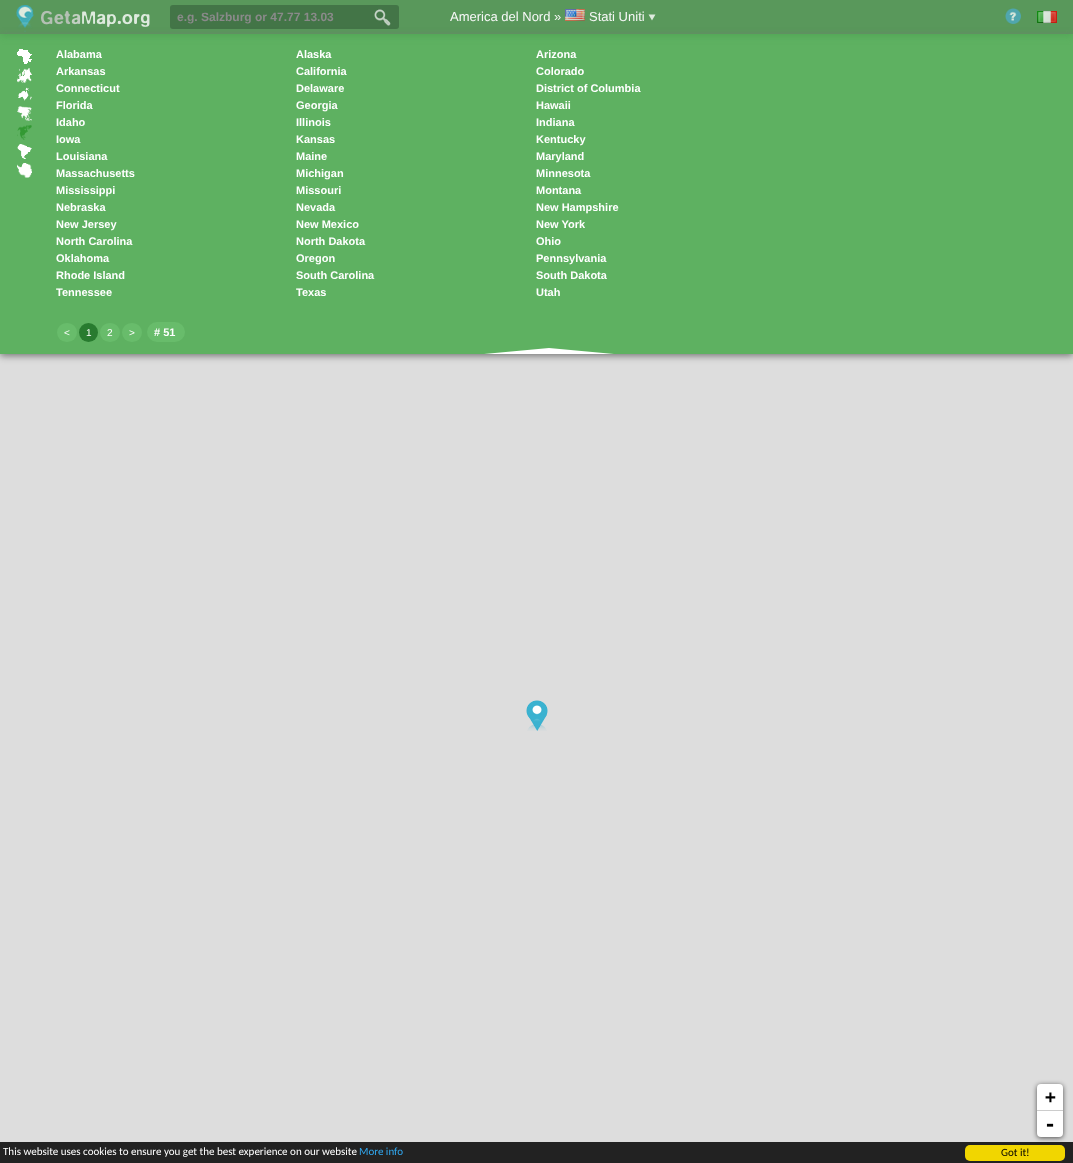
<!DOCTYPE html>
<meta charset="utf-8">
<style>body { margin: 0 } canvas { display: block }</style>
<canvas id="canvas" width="1073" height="1163"></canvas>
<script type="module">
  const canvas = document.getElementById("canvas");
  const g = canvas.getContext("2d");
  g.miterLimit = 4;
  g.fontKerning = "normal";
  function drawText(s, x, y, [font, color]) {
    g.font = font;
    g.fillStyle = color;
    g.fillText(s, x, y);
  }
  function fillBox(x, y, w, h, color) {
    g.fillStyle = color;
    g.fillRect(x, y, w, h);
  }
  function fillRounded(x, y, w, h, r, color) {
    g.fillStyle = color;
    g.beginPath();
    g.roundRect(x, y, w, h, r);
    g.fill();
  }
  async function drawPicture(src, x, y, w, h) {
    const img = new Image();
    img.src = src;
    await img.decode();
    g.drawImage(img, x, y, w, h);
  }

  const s1 = ["bold 12px Liberation Sans", "#8A8A8A"];
  const s2 = ["13px Liberation Sans", "#F8F8F8"];
  const s3 = ["bold 11px Liberation Sans", "#FFFFFF"];
  const s4 = ["10px Liberation Sans", "#FFFFFF"];
  const s5 = ["bold 18px DejaVu Sans Mono", "#000000"];
  const s6 = ["bold 20px DejaVu Sans Mono", "#000000"];
  const s7 = ["11px Carlito", "#FFFFFF"];
  const s8 = ["11px Carlito", "#31A8F0"];
  const s9 = ["11px Carlito", "#000000"];

  fillBox(0, 0, 1073, 1163, "#DDDDDD");
  fillBox(0, 34, 1073, 320, "#5EB161");
  g.fillStyle = "#51A555";
  g.filter = "blur(3.5px)";
  g.beginPath();
  g.rect(0, 2, 1073, 34);
  g.fill();
  g.filter = "none";
  fillBox(0, 0, 1073, 34, "#59985B");
  await drawPicture("pic1.png", 16, 5, 134, 27);
  fillRounded(170, 5, 229, 24, 3, "#437547");
  await drawPicture("pic2.png", 374, 9, 17, 17);
  drawText("e.g. Salzburg or 47.77 13.03", 177, 21, s1);
  drawText("America del Nord »", 450, 21, s2);
  await drawPicture("pic3.png", 565, 9, 20, 12);
  drawText("Stati Uniti", 589, 21, s2);
  await drawPicture("pic4.png", 648, 14, 8, 7);
  await drawPicture("pic5.png", 1005, 8, 16, 16);
  await drawPicture("pic6.png", 1037, 11, 20, 12);
  g.save();
  g.beginPath();
  g.moveTo(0, 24);
  g.lineTo(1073, 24);
  g.lineTo(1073, 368);
  g.lineTo(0, 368);
  g.closePath();
  g.moveTo(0, 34);
  g.lineTo(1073, 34);
  g.lineTo(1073, 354);
  g.lineTo(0, 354);
  g.closePath();
  g.clip("evenodd");
  g.fillStyle = "#777777";
  g.filter = "blur(3.5px)";
  g.beginPath();
  g.rect(0, 36, 1073, 320);
  g.fill();
  g.filter = "none";
  g.restore();
  await drawPicture("pic7.png", 17, 49, 15, 15);
  await drawPicture("pic8.png", 17, 68, 15, 15);
  await drawPicture("pic9.png", 18, 87, 14, 14);
  await drawPicture("pic10.png", 17, 106, 15, 15);
  await drawPicture("pic11.png", 17, 125, 15, 15);
  await drawPicture("pic12.png", 17, 144, 15, 15);
  await drawPicture("pic13.png", 17, 163, 15, 15);
  drawText("Alabama", 56, 58, s3);
  drawText("Alaska", 296, 58, s3);
  drawText("Arizona", 536, 58, s3);
  drawText("Arkansas", 56, 75, s3);
  drawText("California", 296, 75, s3);
  drawText("Colorado", 536, 75, s3);
  drawText("Connecticut", 56, 92, s3);
  drawText("Delaware", 296, 92, s3);
  drawText("District of Columbia", 536, 92, s3);
  drawText("Florida", 56, 109, s3);
  drawText("Georgia", 296, 109, s3);
  drawText("Hawaii", 536, 109, s3);
  drawText("Idaho", 56, 126, s3);
  drawText("Illinois", 296, 126, s3);
  drawText("Indiana", 536, 126, s3);
  drawText("Iowa", 56, 143, s3);
  drawText("Kansas", 296, 143, s3);
  drawText("Kentucky", 536, 143, s3);
  drawText("Louisiana", 56, 160, s3);
  drawText("Maine", 296, 160, s3);
  drawText("Maryland", 536, 160, s3);
  drawText("Massachusetts", 56, 177, s3);
  drawText("Michigan", 296, 177, s3);
  drawText("Minnesota", 536, 177, s3);
  drawText("Mississippi", 56, 194, s3);
  drawText("Missouri", 296, 194, s3);
  drawText("Montana", 536, 194, s3);
  drawText("Nebraska", 56, 211, s3);
  drawText("Nevada", 296, 211, s3);
  drawText("New Hampshire", 536, 211, s3);
  drawText("New Jersey", 56, 228, s3);
  drawText("New Mexico", 296, 228, s3);
  drawText("New York", 536, 228, s3);
  drawText("North Carolina", 56, 245, s3);
  drawText("North Dakota", 296, 245, s3);
  drawText("Ohio", 536, 245, s3);
  drawText("Oklahoma", 56, 262, s3);
  drawText("Oregon", 296, 262, s3);
  drawText("Pennsylvania", 536, 262, s3);
  drawText("Rhode Island", 56, 279, s3);
  drawText("South Carolina", 296, 279, s3);
  drawText("South Dakota", 536, 279, s3);
  drawText("Tennessee", 56, 296, s3);
  drawText("Texas", 296, 296, s3);
  drawText("Utah", 536, 296, s3);
  fillRounded(57, 323, 20, 19, 9.5, "#68BC6B");
  drawText("<", 64, 336, s4);
  g.fillStyle = "#287B2F";
  g.beginPath();
  g.arc(88.5, 332.5, 9.5, 0, Math.PI * 2);
  g.fill();
  drawText("1", 86, 336, s4);
  fillRounded(100, 323, 20, 19, 9.5, "#68BC6B");
  drawText("2", 107, 336, s4);
  fillRounded(122, 323, 20, 19, 9.5, "#68BC6B");
  drawText(">", 129, 336, s4);
  fillRounded(147, 322, 38, 20, 10, "#68BC6B");
  drawText("# 51", 154, 336, s3);
  await drawPicture("pic14.png", 484, 348, 130, 6);
  await drawPicture("pic15.png", 526, 700, 22, 31);
  g.fillStyle = "rgba(0, 0, 0, 0.65)";
  g.filter = "blur(2.5px)";
  g.beginPath();
  g.roundRect(1037, 1085, 26, 53, 4);
  g.fill();
  g.filter = "none";
  g.fillStyle = "#FFFFFF";
  g.beginPath();
  g.roundRect(1037, 1084, 26, 27, [4, 4, 0, 0]);
  g.fill();
  fillBox(1037, 1110, 26, 1, "#CCCCCC");
  drawText("+", 1045, 1103, s5);
  g.fillStyle = "#FFFFFF";
  g.beginPath();
  g.roundRect(1037, 1111, 26, 26, [0, 0, 4, 4]);
  g.fill();
  drawText("-", 1044, 1131, s6);
  fillBox(0, 1142, 1073, 21, "#222222");
  drawText("This website uses cookies to ensure you get the best experience on our website", 3, 1155, s7);
  drawText("More info", 359, 1155, s8);
  fillRounded(965, 1145, 100, 16, 5, "#F1D600");
  drawText("Got it!", 1001, 1156, s9);
</script>
